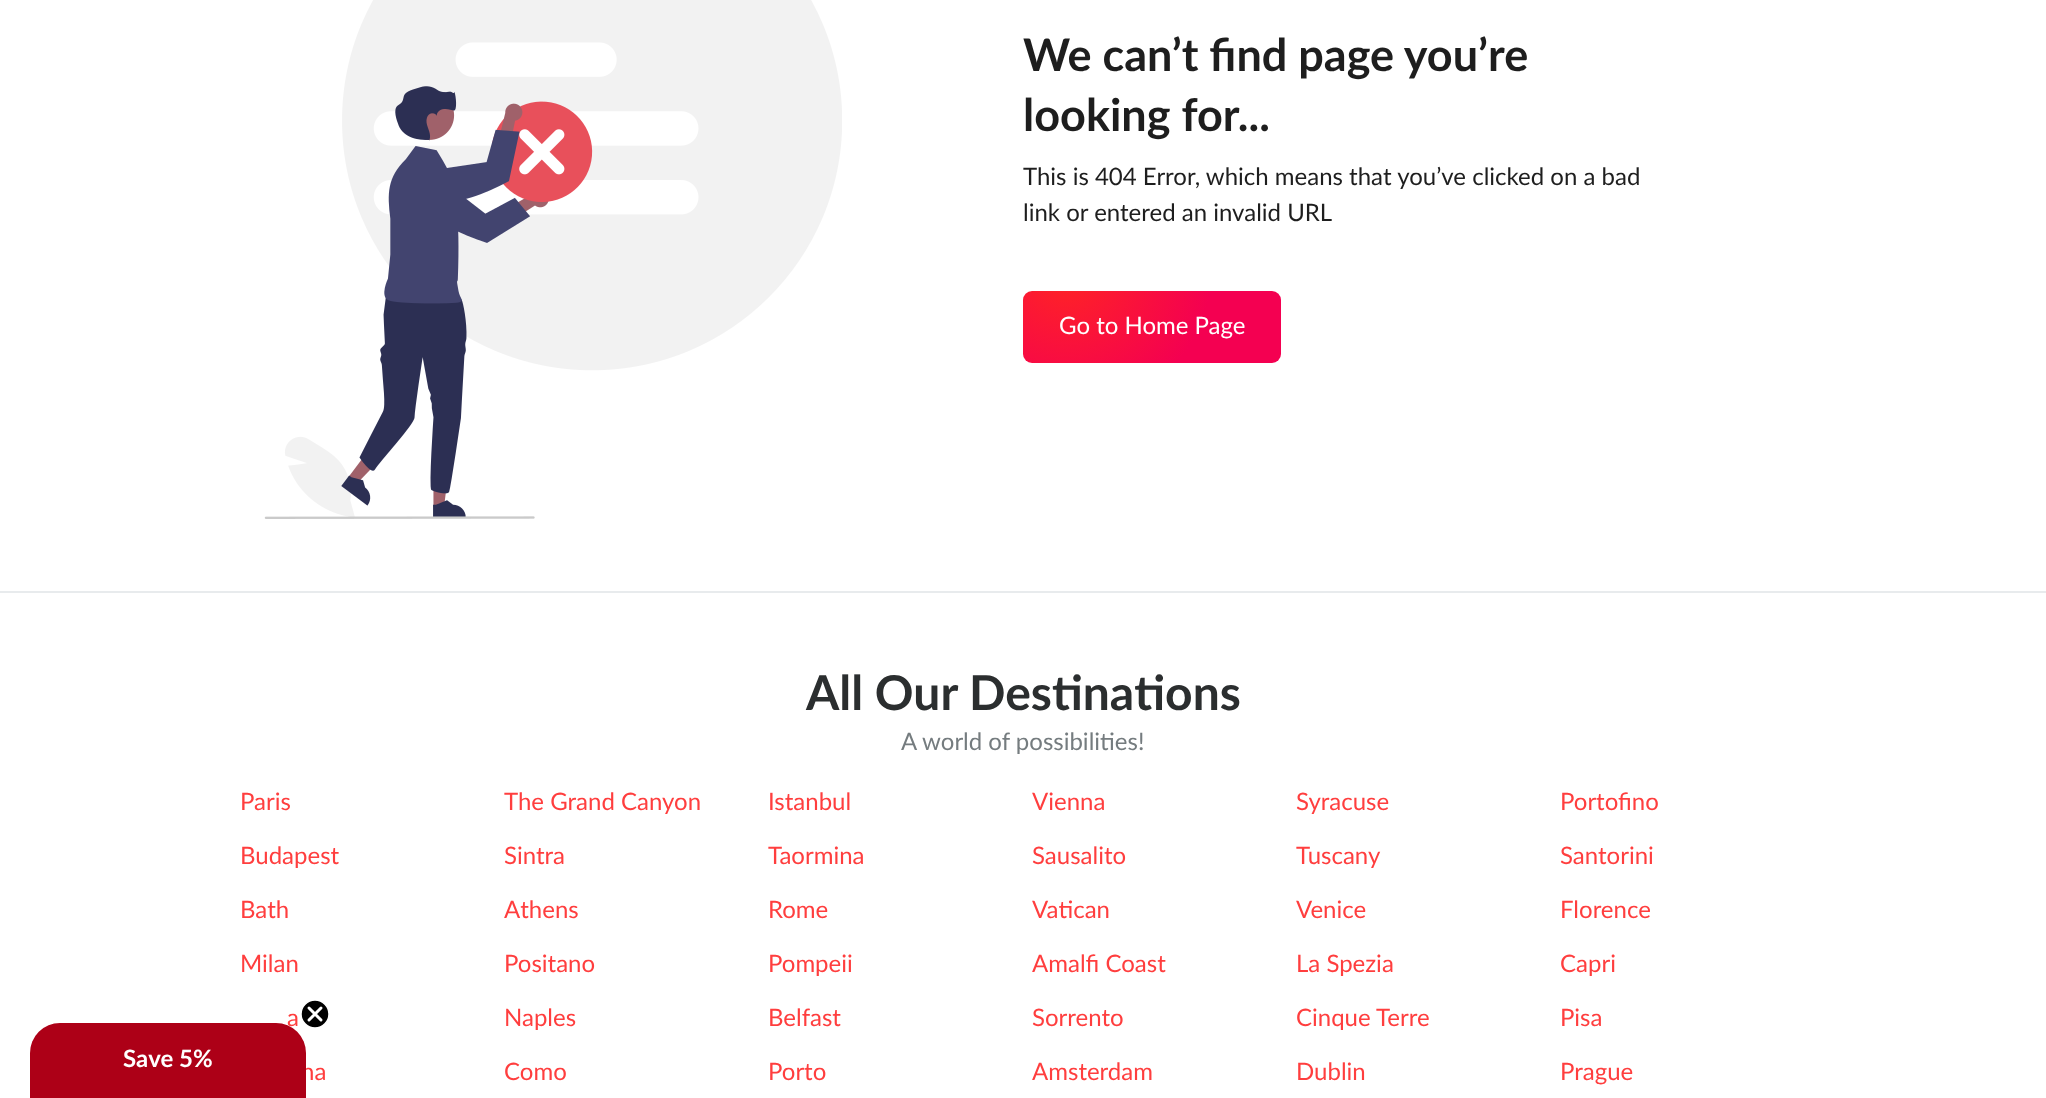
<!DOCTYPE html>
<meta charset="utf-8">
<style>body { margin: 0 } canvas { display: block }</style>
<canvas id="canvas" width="2046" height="1098"></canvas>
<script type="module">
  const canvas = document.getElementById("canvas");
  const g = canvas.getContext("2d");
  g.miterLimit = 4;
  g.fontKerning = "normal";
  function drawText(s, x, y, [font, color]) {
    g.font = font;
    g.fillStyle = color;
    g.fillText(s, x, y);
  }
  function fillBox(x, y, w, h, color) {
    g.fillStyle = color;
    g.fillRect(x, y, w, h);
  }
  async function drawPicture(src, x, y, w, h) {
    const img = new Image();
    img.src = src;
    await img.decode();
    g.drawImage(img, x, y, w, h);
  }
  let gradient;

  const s1 = ["24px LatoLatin", "#FF3E3E"];
  const s2 = ["bold 24px LatoLatin", "#FFFFFF"];
  const s3 = ["bold 45px LatoLatin", "#1E1E1E"];
  const s4 = ["24px LatoLatin", "#1E1E1E"];
  const s5 = ["24px LatoLatin", "#FFFFFF"];
  const s6 = ["bold 48px LatoLatin", "#2B2E2F"];
  const s7 = ["24px LatoLatin", "#757C7F"];

  fillBox(0, 0, 2046, 1098, "#FFFFFF");
  drawText("a", 287, 1026, s1);
  drawText("na", 301, 1080, s1);
  g.fillStyle = "#AD0017";
  g.beginPath();
  g.roundRect(30, 1023, 276, 75, [30, 30, 0, 0]);
  g.fill();
  g.fillStyle = "#000000";
  g.beginPath();
  g.arc(315, 1014, 14, 0, Math.PI * 2);
  g.fill();
  g.strokeStyle = "#FFFFFF";
  g.lineWidth = 1.5;
  g.stroke();
  g.beginPath();
  g.moveTo(309, 1008);
  g.lineTo(321, 1020);
  g.moveTo(309, 1020);
  g.lineTo(321, 1008);
  g.closePath();
  g.lineWidth = 3;
  g.lineCap = "round";
  g.lineJoin = "round";
  g.stroke();
  drawText("Save 5%", 123, 1067, s2);
  await drawPicture("pic1.png", 264, 0, 578, 519);
  drawText("We can’t find page you’re", 1023, 71, s3);
  drawText("looking for...", 1023, 131, s3);
  drawText("This is 404 Error, which means that you’ve clicked on a bad", 1023, 185, s4);
  drawText("link or entered an invalid URL", 1023, 221, s4);
  gradient = g.createRadialGradient(1065, 289.88, 0, 1065, 289.88, 146);
  gradient.addColorStop(0, "#FF2424");
  gradient.addColorStop(1, "#F40051");
  g.fillStyle = gradient;
  g.beginPath();
  g.roundRect(1023, 291, 258, 72, 9);
  g.save();
  g.clip();
  g.scale(1, 138 / 146);
  g.fillRect(0, 0, 2046, 1162);
  g.restore();
  drawText("Go to Home Page", 1059, 334, s5);
  fillBox(0, 591, 2046, 2, "#E8EBED");
  drawText("All Our Destinations", 806, 710, s6);
  drawText("A world of possibilities!", 901, 750, s7);
  drawText("Paris", 240, 810, s1);
  drawText("The Grand Canyon", 504, 810, s1);
  drawText("Istanbul", 768, 810, s1);
  drawText("Vienna", 1032, 810, s1);
  drawText("Syracuse", 1296, 810, s1);
  drawText("Portofino", 1560, 810, s1);
  drawText("Budapest", 240, 864, s1);
  drawText("Sintra", 504, 864, s1);
  drawText("Taormina", 768, 864, s1);
  drawText("Sausalito", 1032, 864, s1);
  drawText("Tuscany", 1296, 864, s1);
  drawText("Santorini", 1560, 864, s1);
  drawText("Bath", 240, 918, s1);
  drawText("Athens", 504, 918, s1);
  drawText("Rome", 768, 918, s1);
  drawText("Vatican", 1032, 918, s1);
  drawText("Venice", 1296, 918, s1);
  drawText("Florence", 1560, 918, s1);
  drawText("Milan", 240, 972, s1);
  drawText("Positano", 504, 972, s1);
  drawText("Pompeii", 768, 972, s1);
  drawText("Amalfi Coast", 1032, 972, s1);
  drawText("La Spezia", 1296, 972, s1);
  drawText("Capri", 1560, 972, s1);
  drawText("Naples", 504, 1026, s1);
  drawText("Belfast", 768, 1026, s1);
  drawText("Sorrento", 1032, 1026, s1);
  drawText("Cinque Terre", 1296, 1026, s1);
  drawText("Pisa", 1560, 1026, s1);
  drawText("Como", 504, 1080, s1);
  drawText("Porto", 768, 1080, s1);
  drawText("Amsterdam", 1032, 1080, s1);
  drawText("Dublin", 1296, 1080, s1);
  drawText("Prague", 1560, 1080, s1);
</script>
